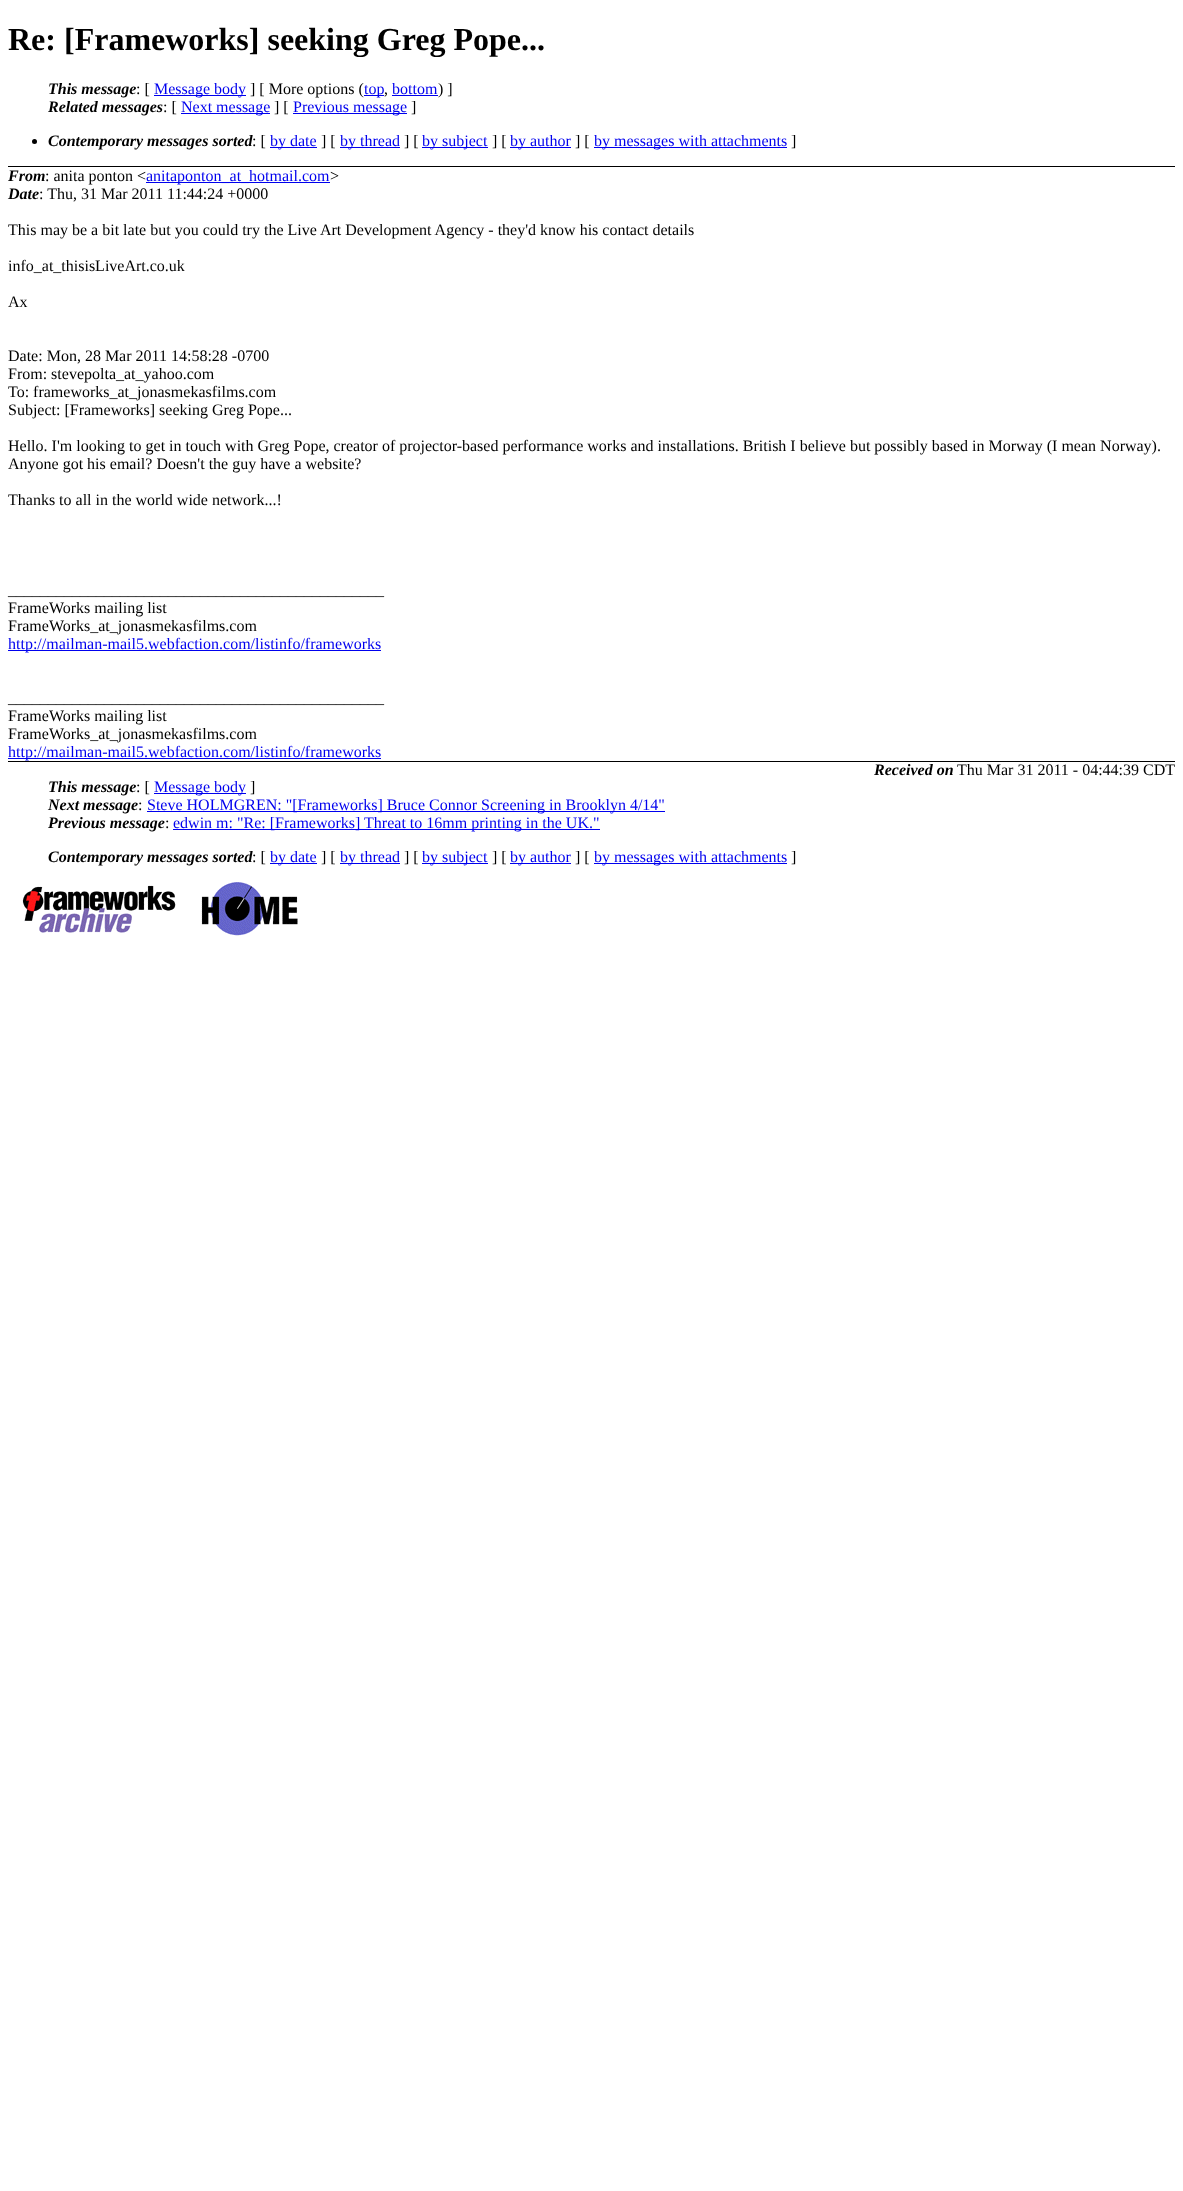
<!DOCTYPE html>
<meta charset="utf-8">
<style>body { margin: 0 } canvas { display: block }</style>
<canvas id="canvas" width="1183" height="2191"></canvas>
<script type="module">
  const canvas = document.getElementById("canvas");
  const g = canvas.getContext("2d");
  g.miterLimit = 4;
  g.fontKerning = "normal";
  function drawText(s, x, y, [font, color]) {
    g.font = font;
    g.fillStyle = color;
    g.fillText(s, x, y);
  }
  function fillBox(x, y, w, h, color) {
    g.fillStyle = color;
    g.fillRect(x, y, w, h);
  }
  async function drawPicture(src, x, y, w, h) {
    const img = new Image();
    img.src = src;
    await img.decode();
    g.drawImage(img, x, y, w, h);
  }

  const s1 = ["bold 32px Liberation Serif", "#000000"];
  const s2 = ["italic bold 16px Liberation Serif", "#000000"];
  const s3 = ["16px Liberation Serif", "#000000"];
  const s4 = ["16px Liberation Serif", "#0000EE"];

  fillBox(0, 0, 1183, 2191, "#FFFFFF");
  fillBox(8, 166, 1167, 1, "#000000");
  drawText("Re: [Frameworks] seeking Greg Pope...", 8, 50, s1);
  drawText("This message", 48, 94, s2);
  drawText(": [", 136, 94, s3);
  fillBox(154, 95, 92, 1, "#0000EE");
  drawText("Message body", 154, 94, s4);
  drawText("] [ More options (", 250, 94, s3);
  fillBox(364, 95, 20, 1, "#0000EE");
  drawText("top", 364, 94, s4);
  drawText(",", 384, 94, s3);
  drawText("bottom", 392, 94, s4);
  fillBox(392, 95, 46, 1, "#0000EE");
  drawText(") ]", 438, 94, s3);
  drawText("Related messages", 48, 112, s2);
  drawText(": [", 163, 112, s3);
  fillBox(181, 113, 89, 1, "#0000EE");
  drawText("Next message", 181, 112, s4);
  drawText("] [", 274, 112, s3);
  fillBox(293, 113, 114, 1, "#0000EE");
  drawText("Previous message", 293, 112, s4);
  drawText("]", 411, 112, s3);
  g.beginPath();
  g.arc(34.5, 141.5, 2.5, 0, Math.PI * 2);
  g.fill();
  drawText("Contemporary messages sorted", 48, 146, s2);
  drawText(": [", 252, 146, s3);
  fillBox(270, 147, 47, 1, "#0000EE");
  drawText("by date", 270, 146, s4);
  drawText("] [", 321, 146, s3);
  fillBox(340, 147, 60, 1, "#0000EE");
  drawText("by thread", 340, 146, s4);
  drawText("] [", 404, 146, s3);
  fillBox(422, 147, 66, 1, "#0000EE");
  drawText("by subject", 422, 146, s4);
  drawText("] [", 492, 146, s3);
  fillBox(510, 147, 61, 1, "#0000EE");
  drawText("by author", 510, 146, s4);
  drawText("] [", 575, 146, s3);
  fillBox(594, 147, 193, 1, "#0000EE");
  drawText("by messages with attachments", 594, 146, s4);
  drawText("]", 791, 146, s3);
  drawText("From", 8, 181, s2);
  drawText(": anita ponton <", 45, 181, s3);
  fillBox(146, 182, 184, 1, "#0000EE");
  drawText("anitaponton_at_hotmail.com", 146, 181, s4);
  drawText(">", 330, 181, s3);
  drawText("Date", 8, 199, s2);
  drawText(": Thu, 31 Mar 2011 11:44:24 +0000", 39, 199, s3);
  drawText("This may be a bit late but you could try the Live Art Development Agency - they'd know his contact details", 8, 235, s3);
  drawText("info_at_thisisLiveArt.co.uk", 8, 271, s3);
  drawText("Ax", 8, 307, s3);
  drawText("Date: Mon, 28 Mar 2011 14:58:28 -0700", 8, 361, s3);
  drawText("From: stevepolta_at_yahoo.com", 8, 379, s3);
  drawText("To: frameworks_at_jonasmekasfilms.com", 8, 397, s3);
  drawText("Subject: [Frameworks] seeking Greg Pope...", 8, 415, s3);
  drawText("Hello. I'm looking to get in touch with Greg Pope, creator of projector-based performance works and installations. British I believe but possibly based in Morway (I mean Norway).", 8, 451, s3);
  drawText("Anyone got his email? Doesn't the guy have a website?", 8, 469, s3);
  drawText("Thanks to all in the world wide network...!", 8, 505, s3);
  drawText("_______________________________________________", 8, 595, s3);
  drawText("FrameWorks mailing list", 8, 613, s3);
  drawText("FrameWorks_at_jonasmekasfilms.com", 8, 631, s3);
  fillBox(8, 650, 373, 1, "#0000EE");
  drawText("http://mailman-mail5.webfaction.com/listinfo/frameworks", 8, 649, s4);
  drawText("_______________________________________________", 8, 703, s3);
  drawText("FrameWorks mailing list", 8, 721, s3);
  drawText("FrameWorks_at_jonasmekasfilms.com", 8, 739, s3);
  fillBox(8, 758, 373, 1, "#0000EE");
  drawText("http://mailman-mail5.webfaction.com/listinfo/frameworks", 8, 757, s4);
  drawText("Received on", 874, 775, s2);
  drawText("Thu Mar 31 2011 - 04:44:39 CDT", 957, 775, s3);
  fillBox(8, 761, 1167, 1, "#000000");
  drawText("This message", 48, 792, s2);
  drawText(": [", 136, 792, s3);
  fillBox(154, 793, 92, 1, "#0000EE");
  drawText("Message body", 154, 792, s4);
  drawText("]", 250, 792, s3);
  drawText("Next message", 48, 810, s2);
  drawText(":", 138, 810, s3);
  fillBox(147, 811, 518, 1, "#0000EE");
  drawText("Steve HOLMGREN: \"[Frameworks] Bruce Connor Screening in Brooklyn 4/14\"", 147, 810, s4);
  drawText("Previous message", 48, 828, s2);
  drawText(":", 165, 828, s3);
  fillBox(173, 829, 427, 1, "#0000EE");
  drawText("edwin m: \"Re: [Frameworks] Threat to 16mm printing in the UK.\"", 173, 828, s4);
  drawText("Contemporary messages sorted", 48, 862, s2);
  drawText(": [", 252, 862, s3);
  fillBox(270, 863, 47, 1, "#0000EE");
  drawText("by date", 270, 862, s4);
  drawText("] [", 321, 862, s3);
  fillBox(340, 863, 60, 1, "#0000EE");
  drawText("by thread", 340, 862, s4);
  drawText("] [", 404, 862, s3);
  fillBox(422, 863, 66, 1, "#0000EE");
  drawText("by subject", 422, 862, s4);
  drawText("] [", 492, 862, s3);
  fillBox(510, 863, 61, 1, "#0000EE");
  drawText("by author", 510, 862, s4);
  drawText("] [", 575, 862, s3);
  fillBox(594, 863, 193, 1, "#0000EE");
  drawText("by messages with attachments", 594, 862, s4);
  drawText("]", 791, 862, s3);
  await drawPicture("pic1.png", 22, 885, 154, 48);
  await drawPicture("pic2.png", 201, 882, 97, 54);
</script>
